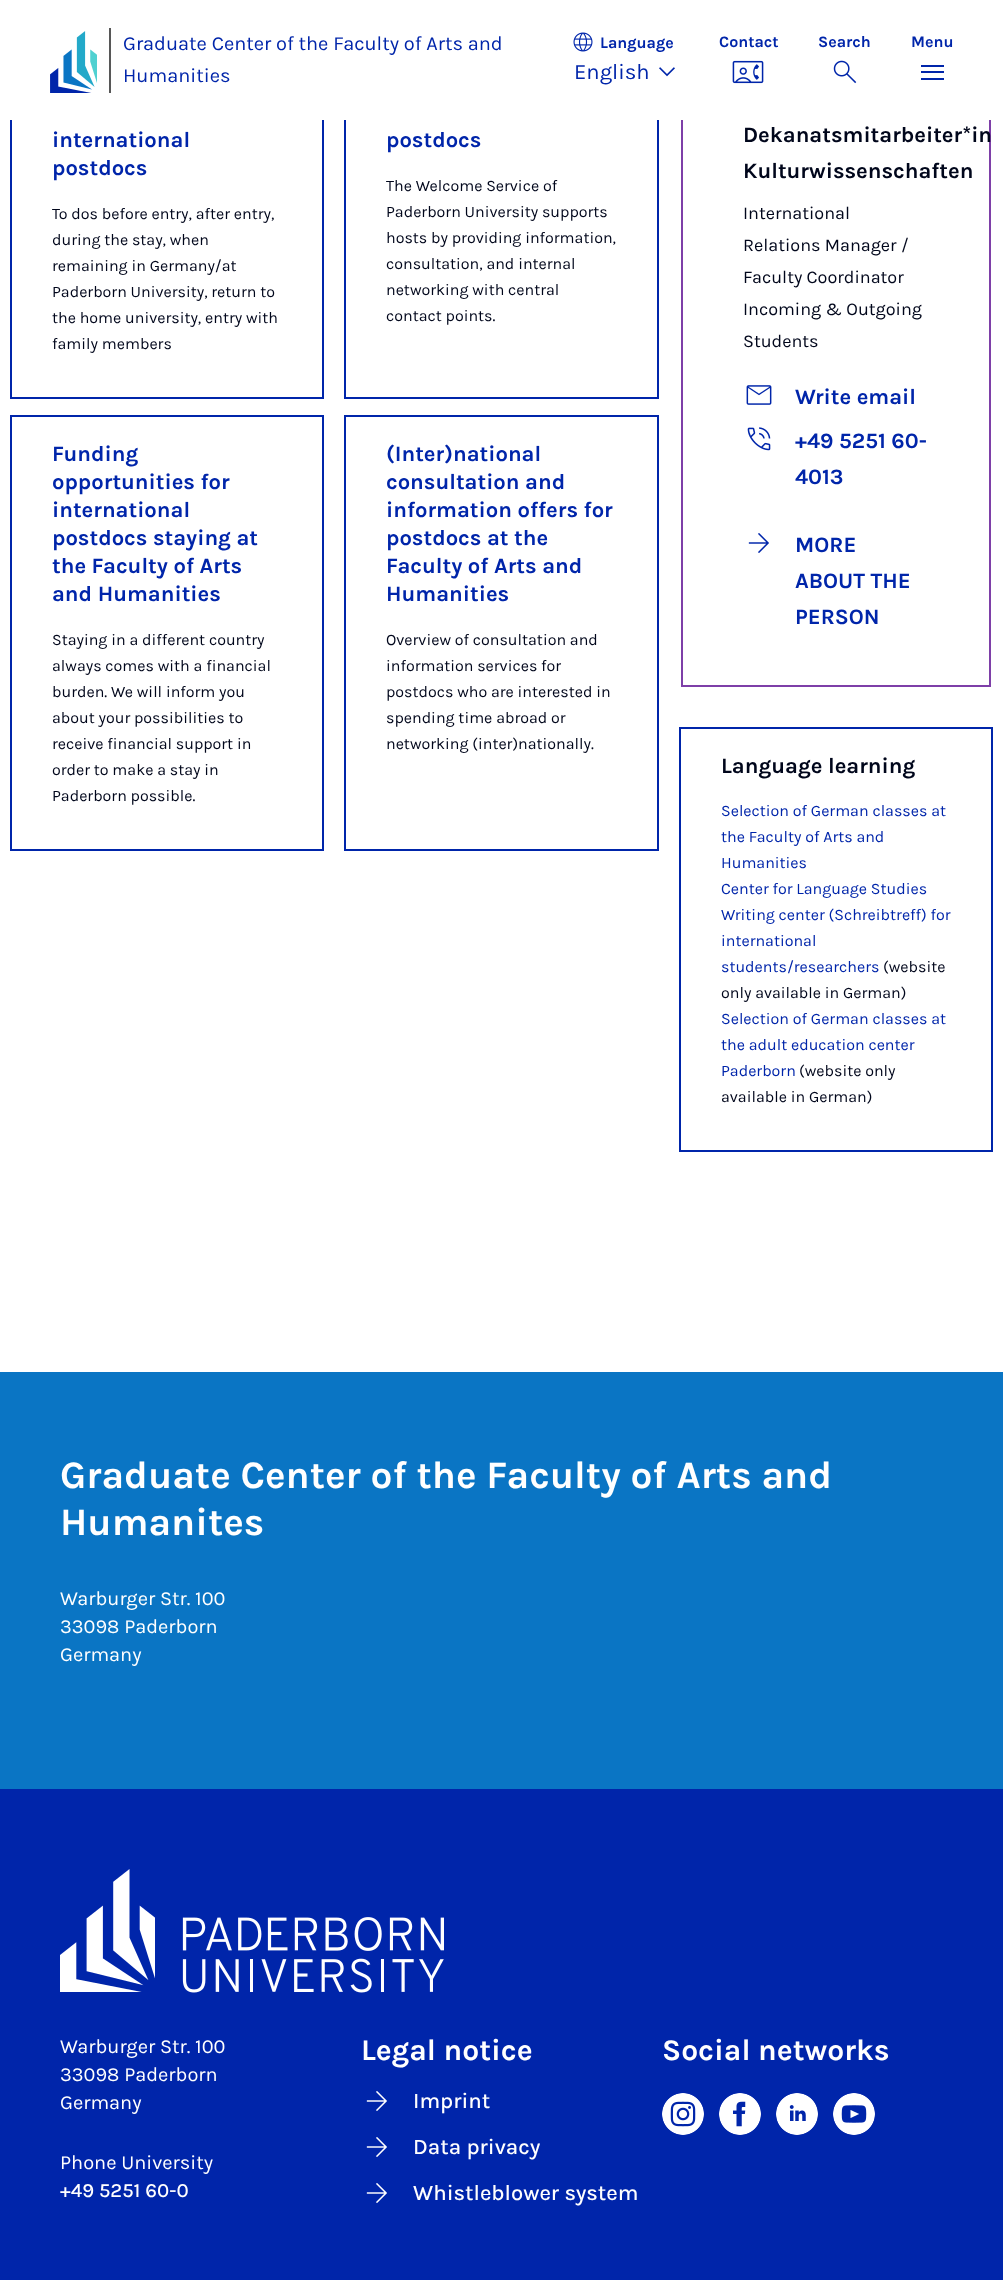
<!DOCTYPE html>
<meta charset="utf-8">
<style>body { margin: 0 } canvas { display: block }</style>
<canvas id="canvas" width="1003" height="2280"></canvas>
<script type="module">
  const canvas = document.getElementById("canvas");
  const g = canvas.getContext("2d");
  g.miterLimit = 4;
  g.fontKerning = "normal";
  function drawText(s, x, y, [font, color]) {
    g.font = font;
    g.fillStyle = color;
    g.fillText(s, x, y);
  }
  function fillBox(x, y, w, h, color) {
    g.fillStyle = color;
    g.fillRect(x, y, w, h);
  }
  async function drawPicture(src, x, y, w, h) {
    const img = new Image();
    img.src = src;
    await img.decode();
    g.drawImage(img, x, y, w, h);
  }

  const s1 = ["20px Karla", "#0025AA"];
  const s2 = ["bold 16px Karla", "#0025AA"];
  const s3 = ["22px Karla", "#0025AA"];
  const s4 = ["bold 22px Karla", "#0025AA"];
  const s5 = ["16px Karla", "#00061B"];
  const s6 = ["bold 22px Karla", "#00061B"];
  const s7 = ["18px Karla", "#00061B"];
  const s8 = ["16px Karla", "#0025AA"];
  const s9 = ["bold 38.75px Karla", "#FFFFFF"];
  const s10 = ["20px Karla", "#FFFFFF"];
  const s11 = ["500 20px Karla", "#FFFFFF"];
  const s12 = ["bold 30px Karla", "#FFFFFF"];
  const s13 = ["500 22px Karla", "#FFFFFF"];

  fillBox(0, 0, 1003, 2280, "#FFFFFF");
  g.strokeStyle = "#0025AA";
  g.lineWidth = 2;
  g.strokeRect(11, 46, 312, 352);
  g.strokeRect(345, 46, 313, 352);
  g.strokeStyle = "#7E3FA8";
  g.strokeRect(682, -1, 308, 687);
  fillBox(10, 0, 981, 120, "#FFFFFF");
  await drawPicture("pic1.png", 50, 31, 47, 62);
  fillBox(109, 28, 2, 65, "#575757");
  drawText("Graduate Center of the Faculty of Arts and", 123, 50, s1);
  drawText("Humanities", 123, 82, s1);
  await drawPicture("pic2.png", 573, 32, 20, 20);
  drawText("Language", 600, 48, s2);
  drawText("English", 574, 79, s3);
  await drawPicture("pic3.png", 659, 67, 16, 10);
  drawText("Contact", 719, 47, s2);
  await drawPicture("pic4.png", 732, 60, 32, 24);
  drawText("Search", 818, 47, s2);
  await drawPicture("pic5.png", 833, 60, 24, 24);
  drawText("Menu", 911, 47, s2);
  fillBox(921, 71, 23, 2, "#0025AA");
  fillBox(921, 65, 23, 2, "#0025AA");
  fillBox(921, 78, 23, 2, "#0025AA");
  drawText("international", 52, 147, s4);
  drawText("postdocs", 52, 175, s4);
  drawText("To dos before entry, after entry,", 52, 219, s5);
  drawText("during the stay, when", 52, 245, s5);
  drawText("remaining in Germany/at", 52, 271, s5);
  drawText("Paderborn University, return to", 52, 297, s5);
  drawText("the home university, entry with", 52, 323, s5);
  drawText("family members", 52, 349, s5);
  drawText("postdocs", 386, 147, s4);
  drawText("The Welcome Service of", 386, 191, s5);
  drawText("Paderborn University supports", 386, 217, s5);
  drawText("hosts by providing information,", 386, 243, s5);
  drawText("consultation, and internal", 386, 269, s5);
  drawText("networking with central", 386, 295, s5);
  drawText("contact points.", 386, 321, s5);
  g.strokeStyle = "#0025AA";
  g.strokeRect(11, 416, 312, 434);
  drawText("Funding", 52, 461, s4);
  drawText("opportunities for", 52, 489, s4);
  drawText("international", 52, 517, s4);
  drawText("postdocs staying at", 52, 545, s4);
  drawText("the Faculty of Arts", 52, 573, s4);
  drawText("and Humanities", 52, 601, s4);
  drawText("Staying in a different country", 52, 645, s5);
  drawText("always comes with a financial", 52, 671, s5);
  drawText("burden. We will inform you", 52, 697, s5);
  drawText("about your possibilities to", 52, 723, s5);
  drawText("receive financial support in", 52, 749, s5);
  drawText("order to make a stay in", 52, 775, s5);
  drawText("Paderborn possible.", 52, 801, s5);
  g.strokeRect(345, 416, 313, 434);
  drawText("(Inter)national", 386, 461, s4);
  drawText("consultation and", 386, 489, s4);
  drawText("information offers for", 386, 517, s4);
  drawText("postdocs at the", 386, 545, s4);
  drawText("Faculty of Arts and", 386, 573, s4);
  drawText("Humanities", 386, 601, s4);
  drawText("Overview of consultation and", 386, 645, s5);
  drawText("information services for", 386, 671, s5);
  drawText("postdocs who are interested in", 386, 697, s5);
  drawText("spending time abroad or", 386, 723, s5);
  drawText("networking (inter)nationally.", 386, 749, s5);
  drawText("Dekanatsmitarbeiter*in", 743, 142, s6);
  drawText("Kulturwissenschaften", 743, 178, s6);
  drawText("International", 743, 219, s7);
  drawText("Relations Manager /", 743, 251, s7);
  drawText("Faculty Coordinator", 743, 283, s7);
  drawText("Incoming & Outgoing", 743, 315, s7);
  drawText("Students", 743, 347, s7);
  await drawPicture("pic6.png", 746, 385, 26, 20);
  drawText("Write email", 795, 404, s4);
  await drawPicture("pic7.png", 747, 427, 24, 24);
  drawText("+49 5251 60-", 795, 448, s4);
  drawText("4013", 795, 484, s4);
  await drawPicture("pic8.png", 748, 533, 21, 20);
  drawText("MORE", 795, 552, s4);
  drawText("ABOUT THE", 795, 588, s4);
  drawText("PERSON", 795, 624, s4);
  g.strokeRect(680, 728, 312, 423);
  drawText("Language learning", 721, 773, s6);
  drawText("Selection of German classes at", 721, 816, s8);
  drawText("the Faculty of Arts and", 721, 842, s8);
  drawText("Humanities", 721, 868, s8);
  drawText("Center for Language Studies", 721, 894, s8);
  drawText("Writing center (Schreibtreff) for", 721, 920, s8);
  drawText("international", 721, 946, s8);
  drawText("students/researchers", 721, 972, s8);
  drawText("(website", 883, 972, s5);
  drawText("only available in German)", 721, 998, s5);
  drawText("Selection of German classes at", 721, 1024, s8);
  drawText("the adult education center", 721, 1050, s8);
  drawText("Paderborn", 721, 1076, s8);
  drawText("(website only", 799, 1076, s5);
  drawText("available in German)", 721, 1102, s5);
  fillBox(0, 1372, 1003, 417, "#0A75C4");
  drawText("Graduate Center of the Faculty of Arts and", 60, 1488, s9);
  drawText("Humanites", 60, 1535, s9);
  drawText("Warburger Str. 100", 60, 1605, s10);
  drawText("33098 Paderborn", 60, 1633, s10);
  drawText("Germany", 60, 1661, s10);
  fillBox(0, 1789, 1003, 491, "#0025AA");
  await drawPicture("pic9.png", 60, 1869, 384, 124);
  drawText("Warburger Str. 100", 60, 2053, s10);
  drawText("33098 Paderborn", 60, 2081, s10);
  drawText("Germany", 60, 2109, s10);
  drawText("Phone University", 60, 2169, s10);
  drawText("+49 5251 60-0", 60, 2197, s11);
  drawText("Legal notice", 361, 2060, s12);
  await drawPicture("pic10.png", 366, 2091, 21, 20);
  drawText("Imprint", 413, 2108, s13);
  await drawPicture("pic10.png", 366, 2137, 21, 20);
  drawText("Data privacy", 413, 2154, s13);
  await drawPicture("pic10.png", 366, 2183, 21, 20);
  drawText("Whistleblower system", 413, 2200, s13);
  drawText("Social networks", 662, 2060, s12);
  await drawPicture("pic11.png", 662, 2093, 42, 42);
  await drawPicture("pic12.png", 719, 2093, 42, 42);
  await drawPicture("pic13.png", 776, 2093, 42, 42);
  await drawPicture("pic14.png", 833, 2093, 42, 42);
</script>
